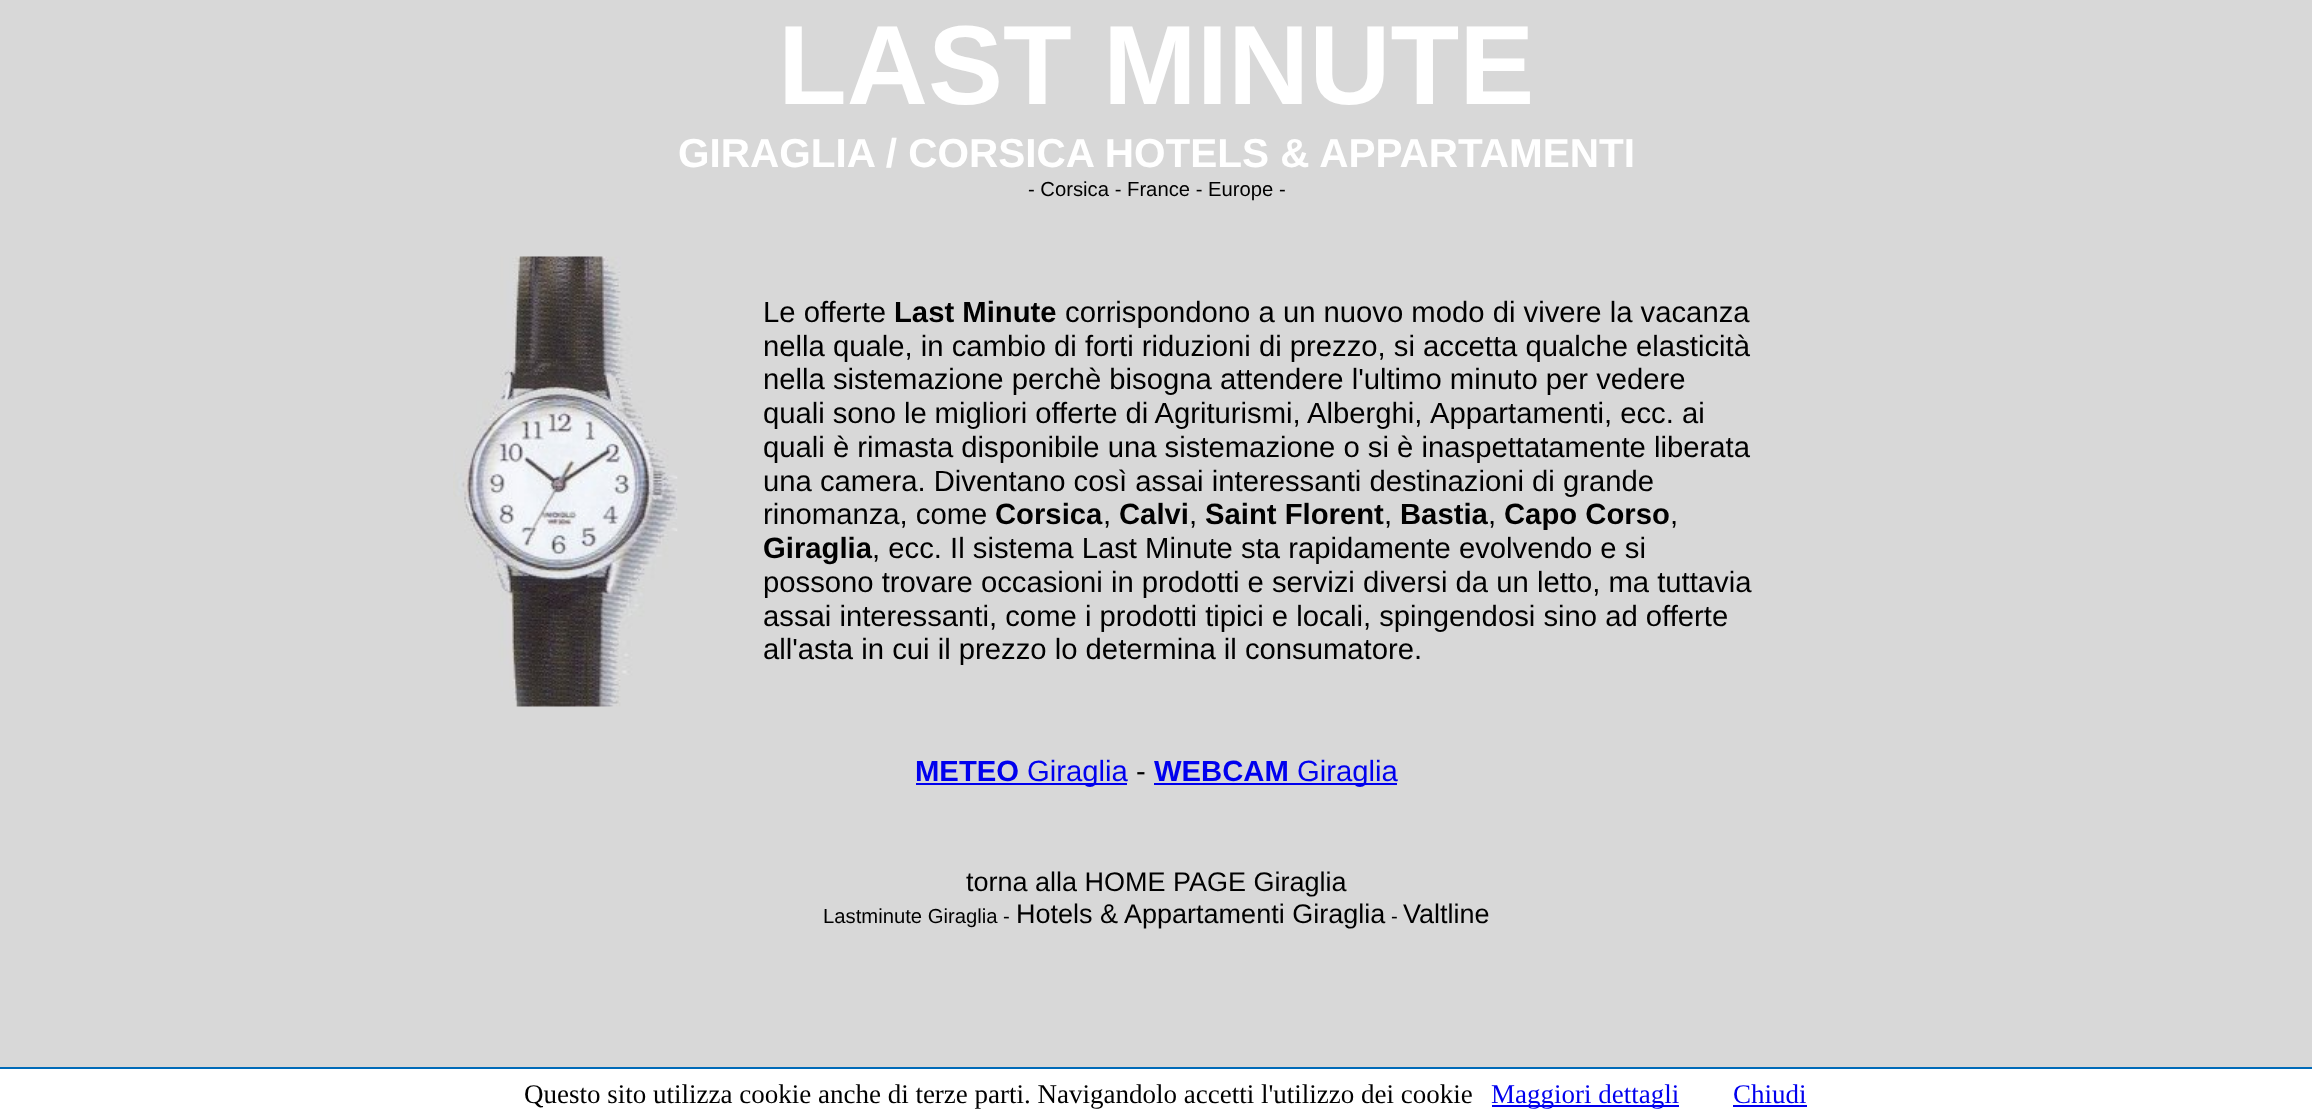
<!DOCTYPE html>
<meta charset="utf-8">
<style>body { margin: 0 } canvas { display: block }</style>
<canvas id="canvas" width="2312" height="1119"></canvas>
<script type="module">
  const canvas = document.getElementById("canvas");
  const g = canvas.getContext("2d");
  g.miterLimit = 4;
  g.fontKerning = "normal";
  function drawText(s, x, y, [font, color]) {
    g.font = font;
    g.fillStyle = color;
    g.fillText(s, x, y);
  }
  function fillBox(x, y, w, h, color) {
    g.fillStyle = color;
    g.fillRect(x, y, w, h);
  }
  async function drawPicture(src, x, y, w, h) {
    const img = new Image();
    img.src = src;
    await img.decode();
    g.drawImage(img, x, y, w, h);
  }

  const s1 = ["bold 112.5px Liberation Sans", "#FFFFFF"];
  const s2 = ["bold 40.5px Liberation Sans", "#FFFFFF"];
  const s3 = ["20.25px Liberation Sans", "#000000"];
  const s4 = ["29.25px Liberation Sans", "#000000"];
  const s5 = ["bold 29.25px Liberation Sans", "#000000"];
  const s6 = ["bold 29.25px Liberation Sans", "#0000EE"];
  const s7 = ["29.25px Liberation Sans", "#0000EE"];
  const s8 = ["27px Liberation Sans", "#000000"];
  const s9 = ["27px Liberation Serif", "#000000"];
  const s10 = ["27px Liberation Serif", "#0000EE"];

  fillBox(0, 0, 2312, 1119, "#D8D8D8");
  drawText("LAST MINUTE", 778, 104, s1);
  drawText("GIRAGLIA / CORSICA HOTELS & APPARTAMENTI", 678, 167, s2);
  drawText("- Corsica - France - Europe -", 1028, 196, s3);
  await drawPicture("pic1.png", 453, 256, 225, 451);
  drawText("Le offerte", 763, 322, s4);
  drawText("Last Minute", 894, 322, s5);
  drawText("corrispondono a un nuovo modo di vivere la vacanza", 1065, 322, s4);
  drawText("nella quale, in cambio di forti riduzioni di prezzo, si accetta qualche elasticità", 763, 356, s4);
  drawText("nella sistemazione perchè bisogna attendere l'ultimo minuto per vedere", 763, 389, s4);
  g.wordSpacing = "-0.25px";
  drawText("quali sono le migliori offerte di Agriturismi, Alberghi,", 763, 423, s4);
  g.wordSpacing = "0px";
  drawText("Appartamenti, ecc. ai", 1430, 423, s4);
  drawText("quali è rimasta disponibile una sistemazione o si è inaspettatamente liberata", 763, 457, s4);
  drawText("una camera. Diventano così assai interessanti destinazioni di grande", 763, 491, s4);
  drawText("rinomanza, come", 763, 524, s4);
  drawText("Corsica", 995, 524, s5);
  drawText(",", 1103, 524, s4);
  drawText("Calvi", 1119, 524, s5);
  drawText(",", 1189, 524, s4);
  drawText("Saint Florent", 1205, 524, s5);
  drawText(",", 1384, 524, s4);
  drawText("Bastia", 1400, 524, s5);
  drawText(",", 1488, 524, s4);
  drawText("Capo Corso", 1504, 524, s5);
  drawText(",", 1670, 524, s4);
  drawText("Giraglia", 763, 558, s5);
  drawText(", ecc. Il sistema Last Minute sta rapidamente evolvendo e si", 872, 558, s4);
  drawText("possono trovare occasioni in prodotti e servizi diversi da un letto, ma tuttavia", 763, 592, s4);
  drawText("assai interessanti, come i prodotti tipici e locali, spingendosi sino ad offerte", 763, 626, s4);
  drawText("all'asta in cui il prezzo lo determina il consumatore.", 763, 659, s4);
  drawText("METEO", 915, 781, s6);
  fillBox(916, 783, 211, 2, "#0000EE");
  drawText("Giraglia", 1027, 781, s7);
  drawText("-", 1136, 781, s4);
  drawText("WEBCAM", 1154, 781, s6);
  fillBox(1154, 783, 243, 2, "#0000EE");
  drawText("Giraglia", 1297, 781, s7);
  drawText("torna alla HOME PAGE Giraglia", 966, 891, s8);
  drawText("Lastminute Giraglia -", 823, 923, s3);
  drawText("Hotels & Appartamenti Giraglia", 1016, 923, s8);
  drawText("-", 1391, 923, s3);
  drawText("Valtline", 1403, 923, s8);
  fillBox(0, 1069, 2312, 50, "#FFFFFF");
  fillBox(0, 1067, 2312, 2, "#006AB8");
  drawText("Questo sito utilizza cookie anche di terze parti. Navigandolo accetti l'utilizzo dei cookie", 524, 1103, s9);
  fillBox(1492, 1105, 187, 2, "#0000EE");
  drawText("Maggiori dettagli", 1491, 1103, s10);
  drawText("Chiudi", 1733, 1103, s10);
  fillBox(1733, 1105, 74, 2, "#0000EE");
</script>
